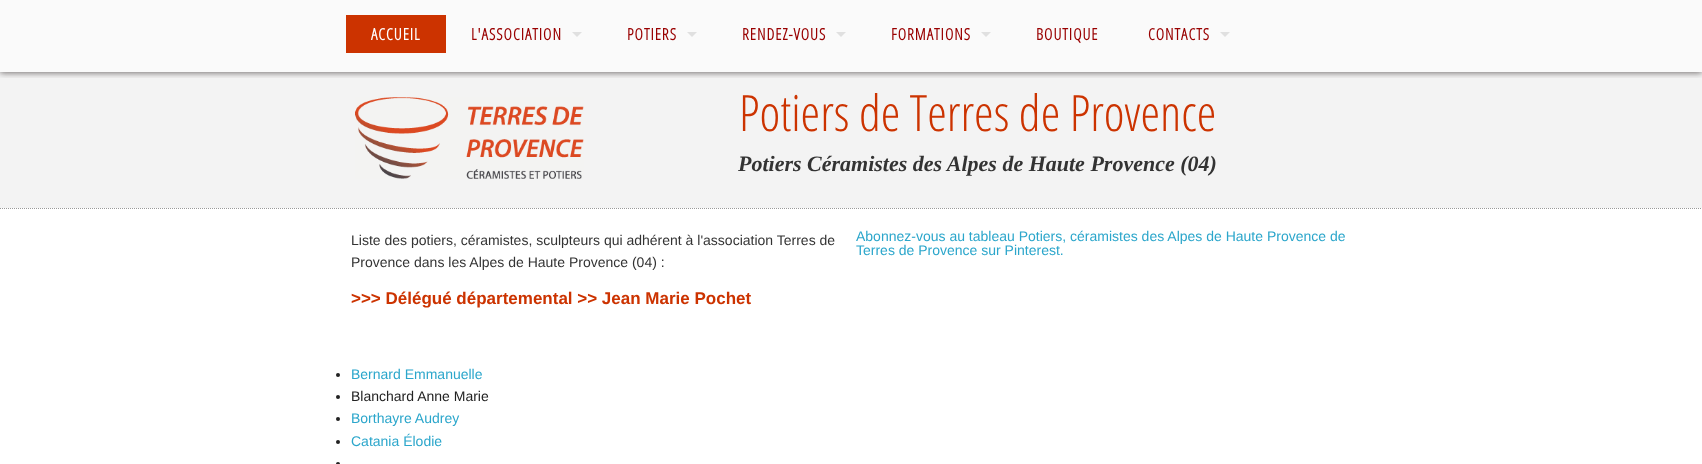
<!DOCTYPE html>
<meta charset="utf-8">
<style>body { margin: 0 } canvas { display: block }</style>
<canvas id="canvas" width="1702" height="464"></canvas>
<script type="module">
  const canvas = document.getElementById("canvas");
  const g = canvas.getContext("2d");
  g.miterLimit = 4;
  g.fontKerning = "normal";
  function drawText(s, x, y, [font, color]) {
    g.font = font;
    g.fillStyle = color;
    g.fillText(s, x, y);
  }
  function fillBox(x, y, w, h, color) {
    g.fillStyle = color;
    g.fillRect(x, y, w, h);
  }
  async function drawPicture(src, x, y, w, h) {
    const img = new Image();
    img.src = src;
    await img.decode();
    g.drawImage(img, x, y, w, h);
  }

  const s1 = ["bold 16px Open Sans Condensed", "#FFFFFF"];
  const s2 = ["bold 16px Open Sans Condensed", "#990000"];
  const s3 = ["300 50px Open Sans Condensed", "#CC3300"];
  const s4 = ["italic bold 22px Liberation Serif", "#333333"];
  const s5 = ["14px Liberation Sans", "#333333"];
  const s6 = ["bold 17px Liberation Sans", "#CC3300"];
  const s7 = ["14px Liberation Sans", "#2BA6CB"];
  const s8 = ["14px Liberation Sans", "#222222"];

  fillBox(0, 0, 1702, 464, "#FAFAFA");
  fillBox(0, 72, 1702, 136, "#F3F3F3");
  g.save();
  g.beginPath();
  g.rect(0, 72, 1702, 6);
  g.clip();
  g.fillStyle = "rgba(34, 25, 25, 0.6)";
  g.filter = "blur(3px)";
  g.beginPath();
  g.rect(0, 1, 1702, 72);
  g.fill();
  g.filter = "none";
  g.restore();
  fillBox(346, 15, 100, 38, "#CC3300");
  g.letterSpacing = "1px";
  drawText("ACCUEIL", 371, 40, s1);
  drawText("L'ASSOCIATION", 471, 40, s2);
  g.fillStyle = "#E0E0E0";
  g.beginPath();
  g.moveTo(572, 32);
  g.lineTo(582, 32);
  g.lineTo(577, 37);
  g.closePath();
  g.fill();
  drawText("POTIERS", 627, 40, s2);
  g.fillStyle = "#E0E0E0";
  g.beginPath();
  g.moveTo(687, 32);
  g.lineTo(697, 32);
  g.lineTo(692, 37);
  g.closePath();
  g.fill();
  drawText("RENDEZ-VOUS", 742, 40, s2);
  g.fillStyle = "#E0E0E0";
  g.beginPath();
  g.moveTo(836, 32);
  g.lineTo(846, 32);
  g.lineTo(841, 37);
  g.closePath();
  g.fill();
  drawText("FORMATIONS", 891, 40, s2);
  g.fillStyle = "#E0E0E0";
  g.beginPath();
  g.moveTo(981, 32);
  g.lineTo(991, 32);
  g.lineTo(986, 37);
  g.closePath();
  g.fill();
  drawText("BOUTIQUE", 1036, 40, s2);
  drawText("CONTACTS", 1148, 40, s2);
  g.fillStyle = "#E0E0E0";
  g.beginPath();
  g.moveTo(1220, 32);
  g.lineTo(1230, 32);
  g.lineTo(1225, 37);
  g.closePath();
  g.fill();
  await drawPicture("pic1.png", 355, 97, 229, 82);
  g.letterSpacing = "0px";
  drawText("Potiers de Terres de Provence", 739, 131, s3);
  drawText("Potiers Céramistes des Alpes de Haute Provence (04)", 738, 171, s4);
  fillBox(0, 208, 1702, 256, "#FFFFFF");
  g.beginPath();
  g.moveTo(0, 208.5);
  g.lineTo(1702, 208.5);
  g.strokeStyle = "#999999";
  g.setLineDash([1, 1]);
  g.stroke();
  drawText("Liste des potiers, céramistes, sculpteurs qui adhérent à l'association Terres de", 351, 245, s5);
  drawText("Provence dans les Alpes de Haute Provence (04) :", 351, 267, s5);
  drawText(">>> Délégué départemental >> Jean Marie Pochet", 351, 304, s6);
  g.fillStyle = "#222222";
  g.beginPath();
  g.arc(338, 375, 2, 0, Math.PI * 2);
  g.fill();
  drawText("Bernard Emmanuelle", 351, 379, s7);
  g.fillStyle = "#222222";
  g.beginPath();
  g.arc(338, 397, 2, 0, Math.PI * 2);
  g.fill();
  drawText("Blanchard Anne Marie", 351, 401, s8);
  g.beginPath();
  g.arc(338, 419, 2, 0, Math.PI * 2);
  g.fill();
  drawText("Borthayre Audrey", 351, 423, s7);
  g.fillStyle = "#222222";
  g.beginPath();
  g.arc(338, 442, 2, 0, Math.PI * 2);
  g.fill();
  drawText("Catania Élodie", 351, 446, s7);
  g.fillStyle = "#222222";
  g.beginPath();
  g.arc(338, 464, 2, 0, Math.PI * 2);
  g.fill();
  drawText("Abonnez-vous au tableau Potiers, céramistes des Alpes de Haute Provence de", 856, 241, s7);
  drawText("Terres de Provence sur Pinterest.", 856, 255, s7);
</script>
